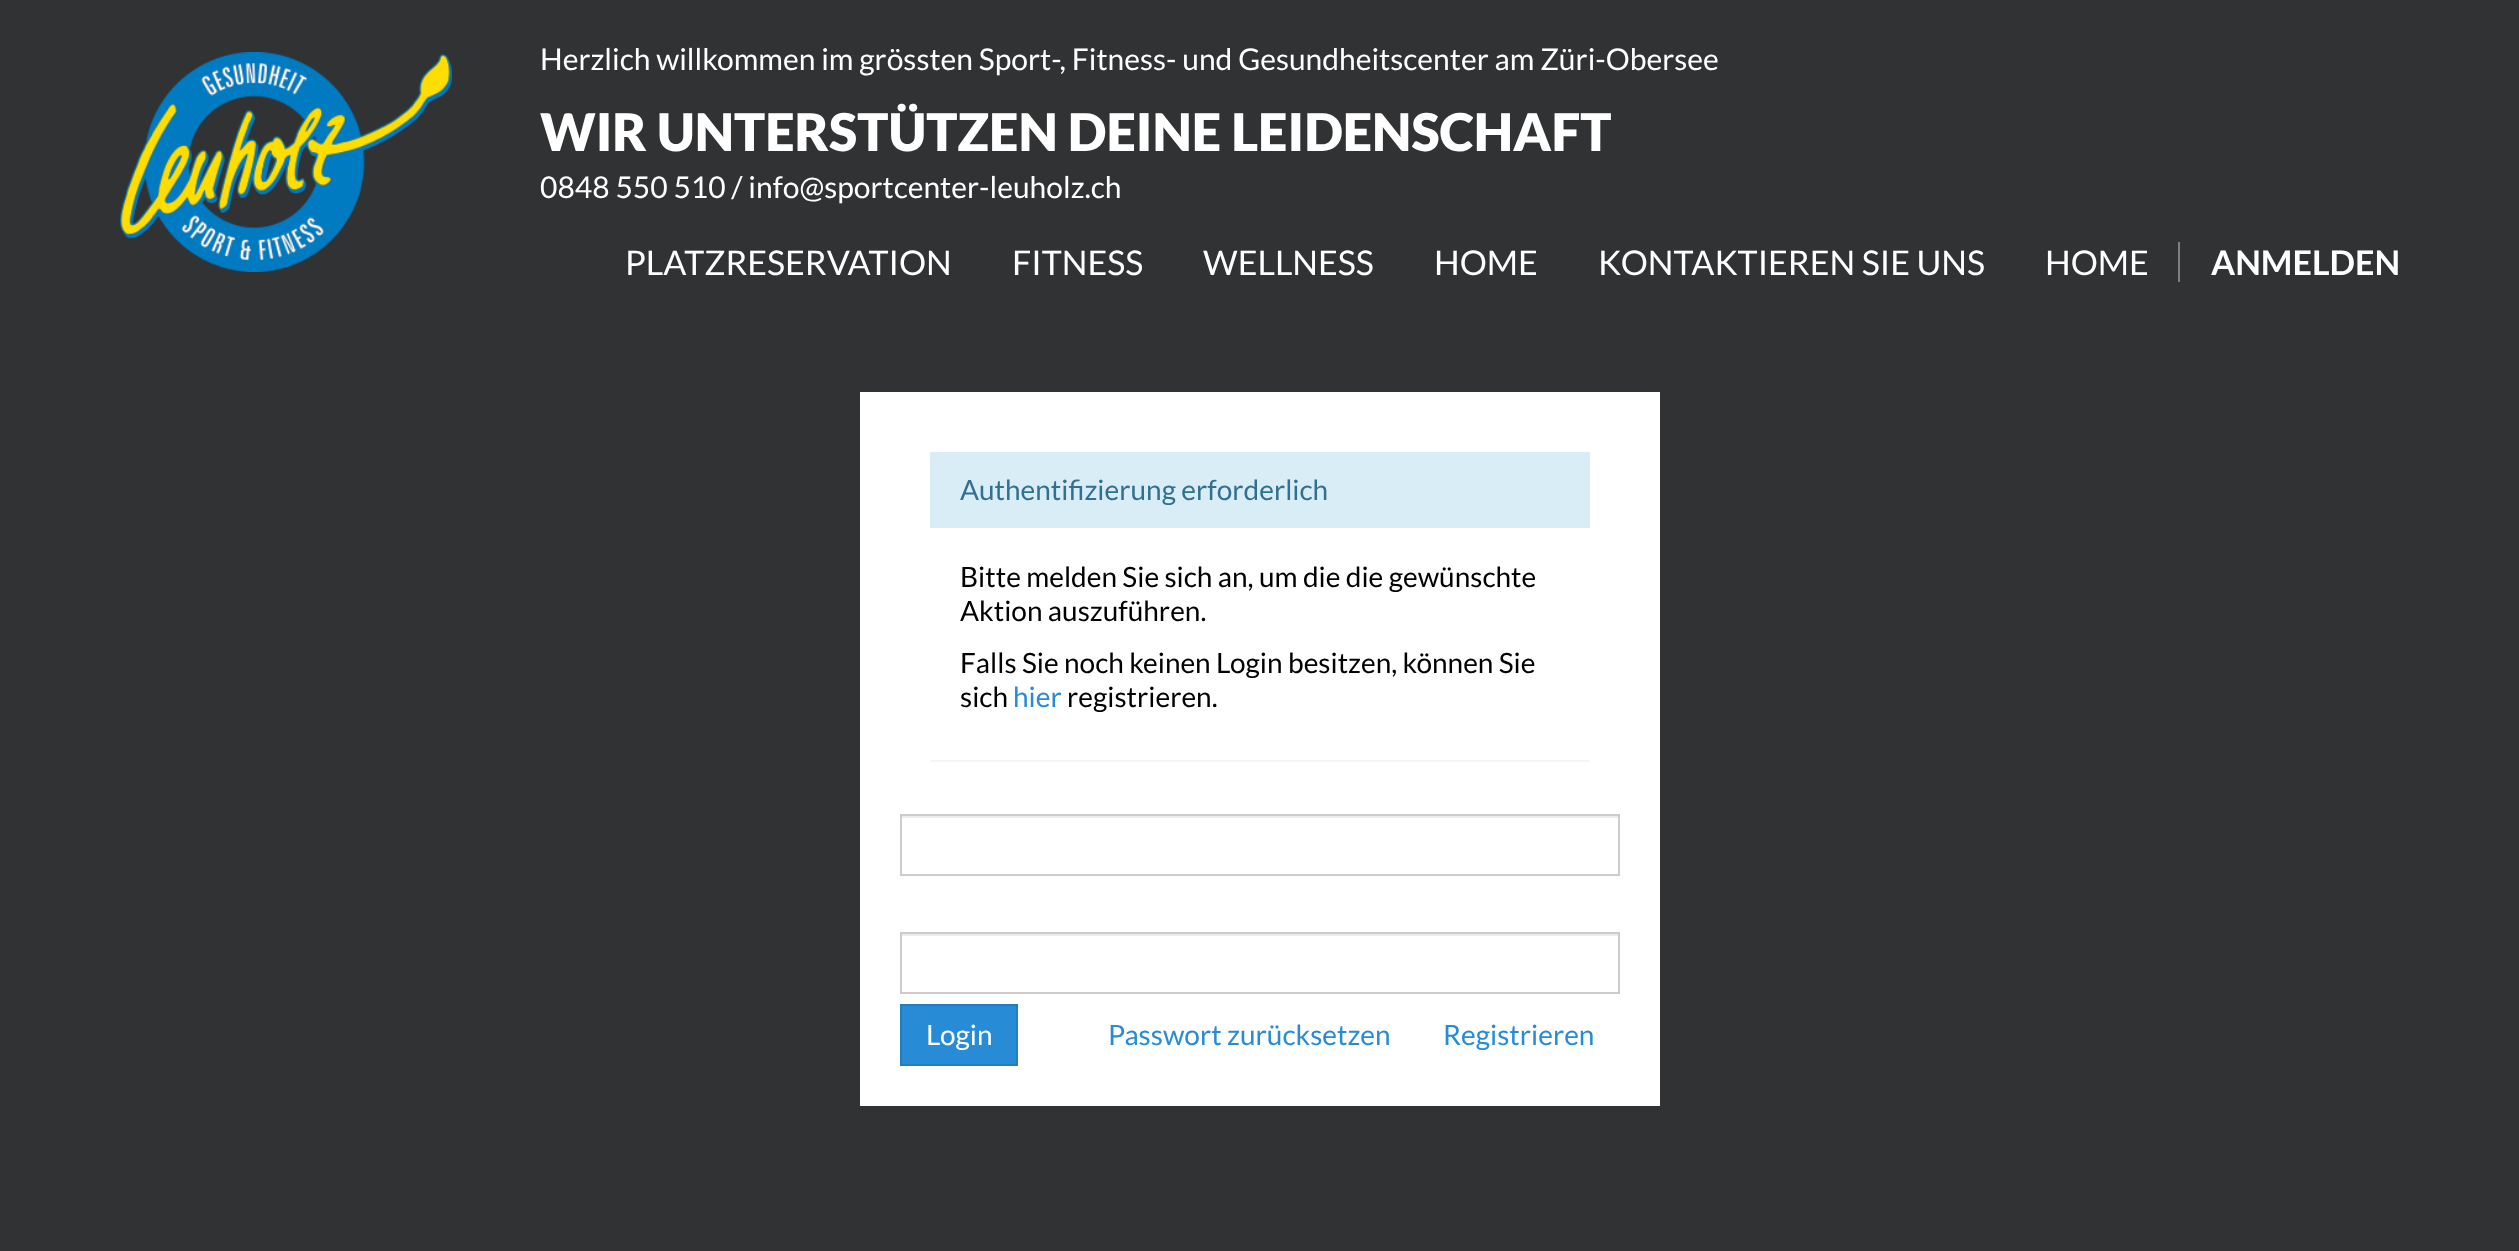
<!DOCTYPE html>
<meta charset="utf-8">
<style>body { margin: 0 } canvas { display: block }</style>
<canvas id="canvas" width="2519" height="1251"></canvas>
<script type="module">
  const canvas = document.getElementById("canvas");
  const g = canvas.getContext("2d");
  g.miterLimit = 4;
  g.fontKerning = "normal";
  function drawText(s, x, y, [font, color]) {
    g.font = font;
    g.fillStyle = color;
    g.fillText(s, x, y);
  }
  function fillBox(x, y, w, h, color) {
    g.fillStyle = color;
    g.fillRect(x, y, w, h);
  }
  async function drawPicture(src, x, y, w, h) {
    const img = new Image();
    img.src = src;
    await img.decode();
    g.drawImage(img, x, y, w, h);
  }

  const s1 = ["30px Lato", "#FFFFFF"];
  const s2 = ["900 52px Lato", "#FFFFFF"];
  const s3 = ["34px Lato", "#FFFFFF"];
  const s4 = ["bold 34px Lato", "#FFFFFF"];
  const s5 = ["28px Lato", "#31708F"];
  const s6 = ["28px Lato", "#000000"];
  const s7 = ["28px Lato", "#278CD5"];
  const s8 = ["28px Lato", "#FFFFFF"];

  fillBox(0, 0, 2519, 1251, "#303234");
  await drawPicture("pic1.png", 120, 52, 332, 220);
  drawText("Herzlich willkommen im grössten Sport-, Fitness- und Gesundheitscenter am Züri-Obersee", 540, 70, s1);
  drawText("WIR UNTERSTÜTZEN DEINE LEIDENSCHAFT", 540, 151, s2);
  drawText("0848 550 510 / info@sportcenter-leuholz.ch", 540, 198, s1);
  drawText("PLATZRESERVATION", 625, 275, s3);
  drawText("FITNESS", 1012, 275, s3);
  drawText("WELLNESS", 1203, 275, s3);
  drawText("HOME", 1434, 275, s3);
  drawText("KONTAKTIEREN SIE UNS", 1598, 275, s3);
  drawText("HOME", 2045, 275, s3);
  fillBox(2178, 242, 2, 40, "#808080");
  drawText("ANMELDEN", 2211, 275, s4);
  fillBox(860, 392, 800, 714, "#FFFFFF");
  g.save();
  g.beginPath();
  g.rect(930, 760, 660, 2);
  g.clip();
  g.fillStyle = "rgba(0, 0, 0, 0.05)";
  g.filter = "blur(1px)";
  g.beginPath();
  g.rect(930, 454, 660, 308);
  g.fill();
  g.filter = "none";
  g.restore();
  fillBox(930, 452, 660, 76, "#D9EDF7");
  drawText("Authentifizierung erforderlich", 960, 500, s5);
  drawText("Bitte melden Sie sich an, um die die gewünschte", 960, 587, s6);
  drawText("Aktion auszuführen.", 960, 621, s6);
  drawText("Falls Sie noch keinen Login besitzen, können Sie", 960, 673, s6);
  drawText("sich", 960, 707, s6);
  drawText("hier", 1013, 707, s7);
  drawText("registrieren.", 1067, 707, s6);
  fillBox(902, 816, 716, 2, "#ECECEC");
  g.strokeStyle = "#CCCCCC";
  g.lineWidth = 2;
  g.strokeRect(901, 815, 718, 60);
  fillBox(902, 934, 716, 2, "#ECECEC");
  g.strokeRect(901, 933, 718, 60);
  g.fillStyle = "#278CD5";
  g.beginPath();
  g.rect(901, 1005, 116, 60);
  g.fill();
  g.strokeStyle = "#237EBF";
  g.stroke();
  drawText("Login", 926, 1045, s8);
  drawText("Passwort zurücksetzen", 1108, 1045, s7);
  drawText("Registrieren", 1443, 1045, s7);
</script>
